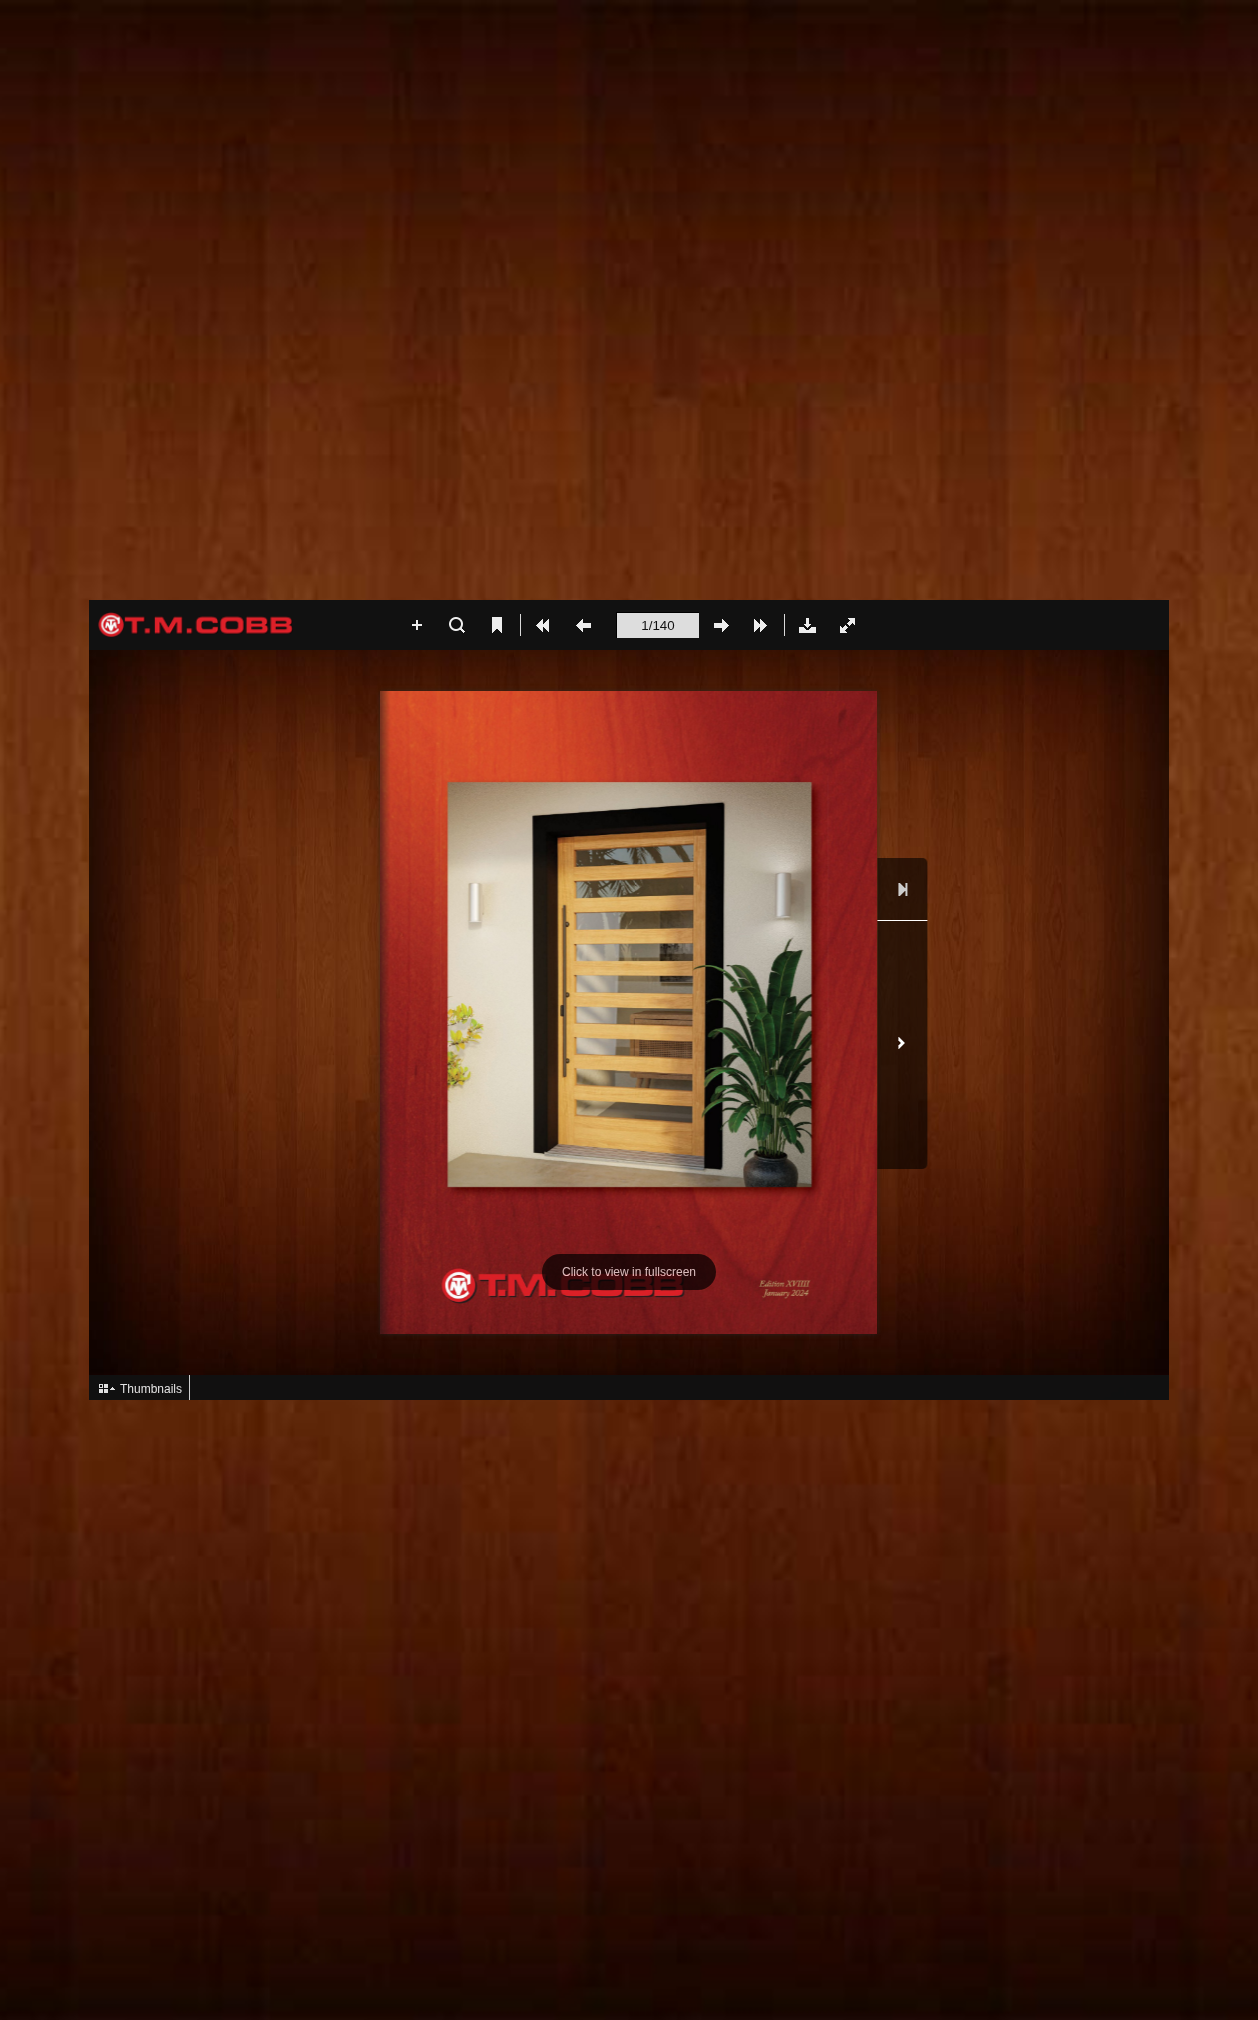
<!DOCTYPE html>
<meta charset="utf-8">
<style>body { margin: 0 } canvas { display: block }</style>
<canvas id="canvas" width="1258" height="2020"></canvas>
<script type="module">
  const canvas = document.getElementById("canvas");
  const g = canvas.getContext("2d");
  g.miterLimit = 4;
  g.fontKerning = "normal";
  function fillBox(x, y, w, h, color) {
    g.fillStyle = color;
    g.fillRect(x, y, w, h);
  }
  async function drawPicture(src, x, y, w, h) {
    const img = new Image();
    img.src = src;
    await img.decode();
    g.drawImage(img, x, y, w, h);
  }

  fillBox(0, 0, 1258, 2020, "#FFFFFF");
  await drawPicture("pic1.png", 0, 0, 1258, 2020);
  await drawPicture("pic2.png", 89, 600, 1080, 800);
</script>
